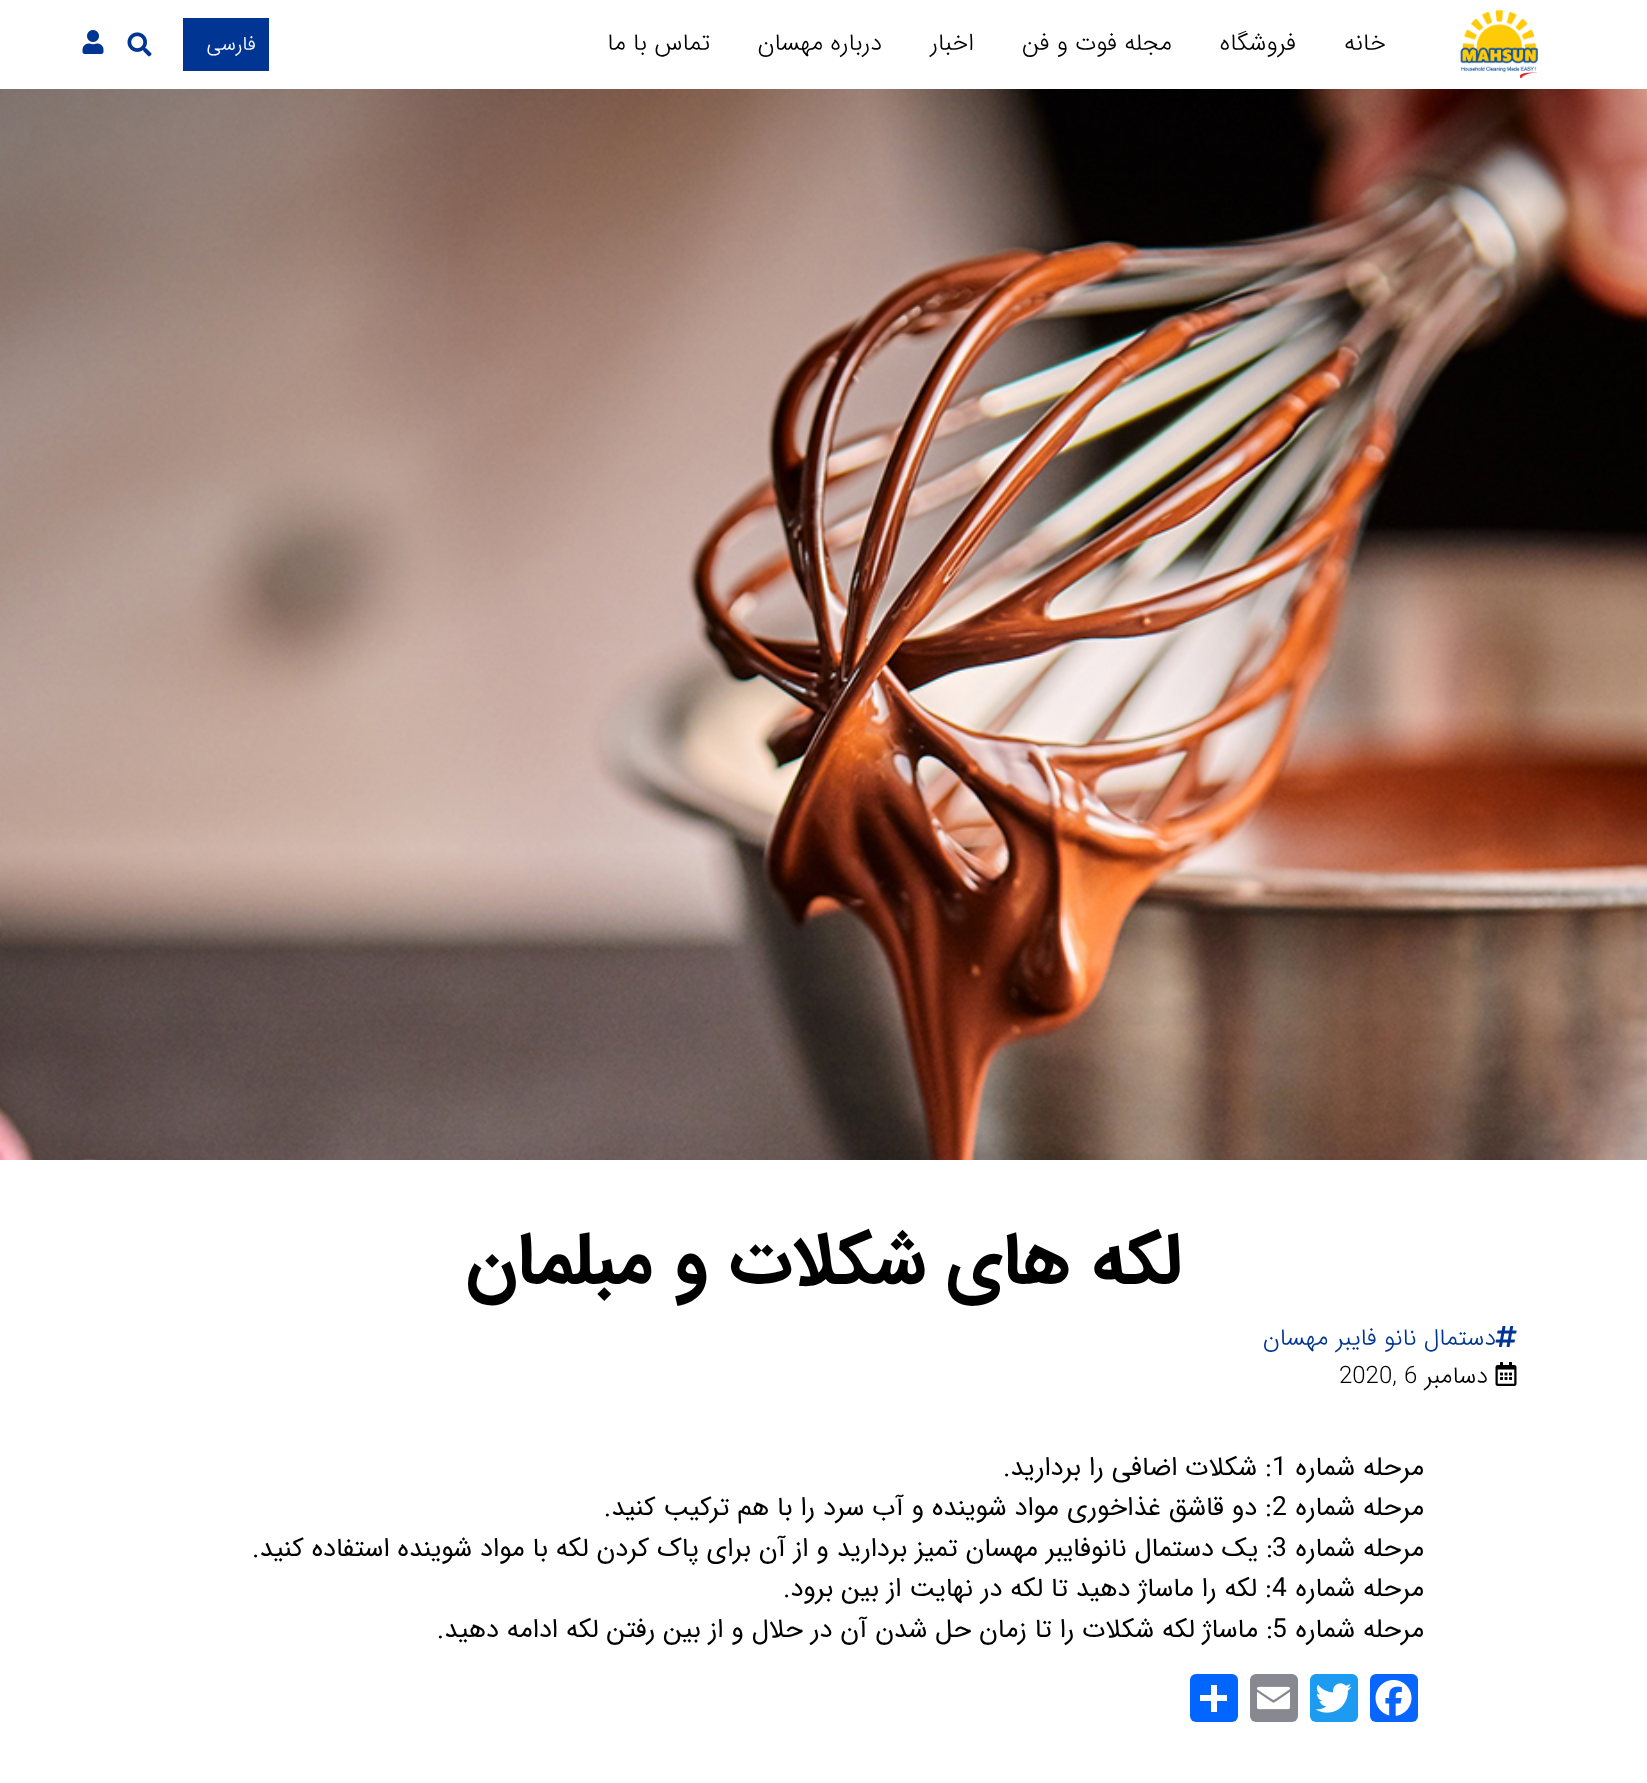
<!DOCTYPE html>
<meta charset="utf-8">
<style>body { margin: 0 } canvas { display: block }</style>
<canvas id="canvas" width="1647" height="1783"></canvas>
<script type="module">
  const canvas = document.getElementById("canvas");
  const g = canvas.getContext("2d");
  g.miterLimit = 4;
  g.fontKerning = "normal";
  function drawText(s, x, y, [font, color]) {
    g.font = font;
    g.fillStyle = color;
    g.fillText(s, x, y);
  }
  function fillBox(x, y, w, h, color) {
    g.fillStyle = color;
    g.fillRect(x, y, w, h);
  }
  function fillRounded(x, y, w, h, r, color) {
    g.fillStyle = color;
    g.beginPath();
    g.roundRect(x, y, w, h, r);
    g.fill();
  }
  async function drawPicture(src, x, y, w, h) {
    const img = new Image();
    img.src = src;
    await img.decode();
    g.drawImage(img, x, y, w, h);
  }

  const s1 = ["300 24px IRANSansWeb", "#000000"];
  const s2 = ["300 20px IRANSansWeb", "#FFFFFF"];
  const s3 = ["bold 72px IRANSansWeb", "#000000"];
  const s4 = ["300 24px IRANSansWeb", "#003594"];
  const s5 = ["26.4px IRANSansWeb", "#000000"];

  fillBox(0, 0, 1647, 1783, "#FFFFFF");
  await drawPicture("pic1.png", 1460, 9, 78, 70);
  g.direction = "rtl";
  drawText("خانه", 1386, 50, s1);
  drawText("فروشگاه", 1296, 50, s1);
  drawText("مجله فوت و فن", 1172, 50, s1);
  drawText("اخبار", 974, 50, s1);
  drawText("درباره مهسان", 882, 50, s1);
  drawText("تماس با ما", 710, 50, s1);
  fillBox(183, 18, 86, 53, "#003594");
  drawText("فارسی", 256, 50, s2);
  await drawPicture("pic2.png", 127, 32, 25, 25);
  await drawPicture("pic3.png", 82, 30, 22, 24);
  await drawPicture("pic4.png", 0, 89, 1647, 1071);
  drawText("لکه های شکلات و مبلمان", 1181, 1282, s3);
  await drawPicture("pic5.png", 1495, 1326, 22, 21);
  drawText("دستمال نانو فایبر مهسان", 1496, 1345, s4);
  await drawPicture("pic6.png", 1495, 1362, 22, 24);
  drawText("دسامبر", 1488, 1383, s1);
  g.direction = "ltr";
  drawText("2020, 6", 1339, 1383, s1);
  g.direction = "rtl";
  drawText("مرحله شماره", 1424, 1475, s5);
  g.direction = "ltr";
  drawText("1", 1272, 1475, s5);
  g.direction = "rtl";
  drawText(": شکلات اضافی را بردارید.", 1272, 1475, s5);
  drawText("مرحله شماره", 1424, 1515, s5);
  g.direction = "ltr";
  drawText("2", 1272, 1515, s5);
  g.direction = "rtl";
  drawText(": دو قاشق غذاخوری مواد شوینده و آب سرد را با هم ترکیب کنید.", 1272, 1515, s5);
  drawText("مرحله شماره", 1424, 1556, s5);
  g.direction = "ltr";
  drawText("3", 1272, 1556, s5);
  g.direction = "rtl";
  drawText(": یک دستمال نانوفایبر مهسان تمیز بردارید و از آن برای پاک کردن لکه با مواد شوینده استفاده کنید.", 1273, 1556, s5);
  drawText("مرحله شماره", 1424, 1596, s5);
  g.direction = "ltr";
  drawText("4", 1272, 1596, s5);
  g.direction = "rtl";
  drawText(": لکه را ماساژ دهید تا لکه در نهایت از بین برود.", 1272, 1596, s5);
  drawText("مرحله شماره", 1424, 1637, s5);
  g.direction = "ltr";
  drawText("5", 1272, 1637, s5);
  g.direction = "rtl";
  drawText(": ماساژ لکه شکلات را تا زمان حل شدن آن در حلال و از بین رفتن لکه ادامه دهید.", 1273, 1637, s5);
  fillRounded(1370, 1674, 48, 48, 6, "#0866FF");
  await drawPicture("pic7.png", 1375, 1680, 37, 36);
  fillRounded(1310, 1674, 48, 48, 6, "#1D9BF0");
  await drawPicture("pic8.png", 1315, 1683, 37, 30);
  fillRounded(1250, 1674, 48, 48, 6, "#888990");
  await drawPicture("pic9.png", 1257, 1686, 33, 24);
  fillRounded(1190, 1674, 48, 48, 6, "#0166FF");
  fillBox(1211, 1685, 6, 27, "#FFFFFF");
  fillBox(1200, 1695, 27, 6, "#FFFFFF");
</script>
